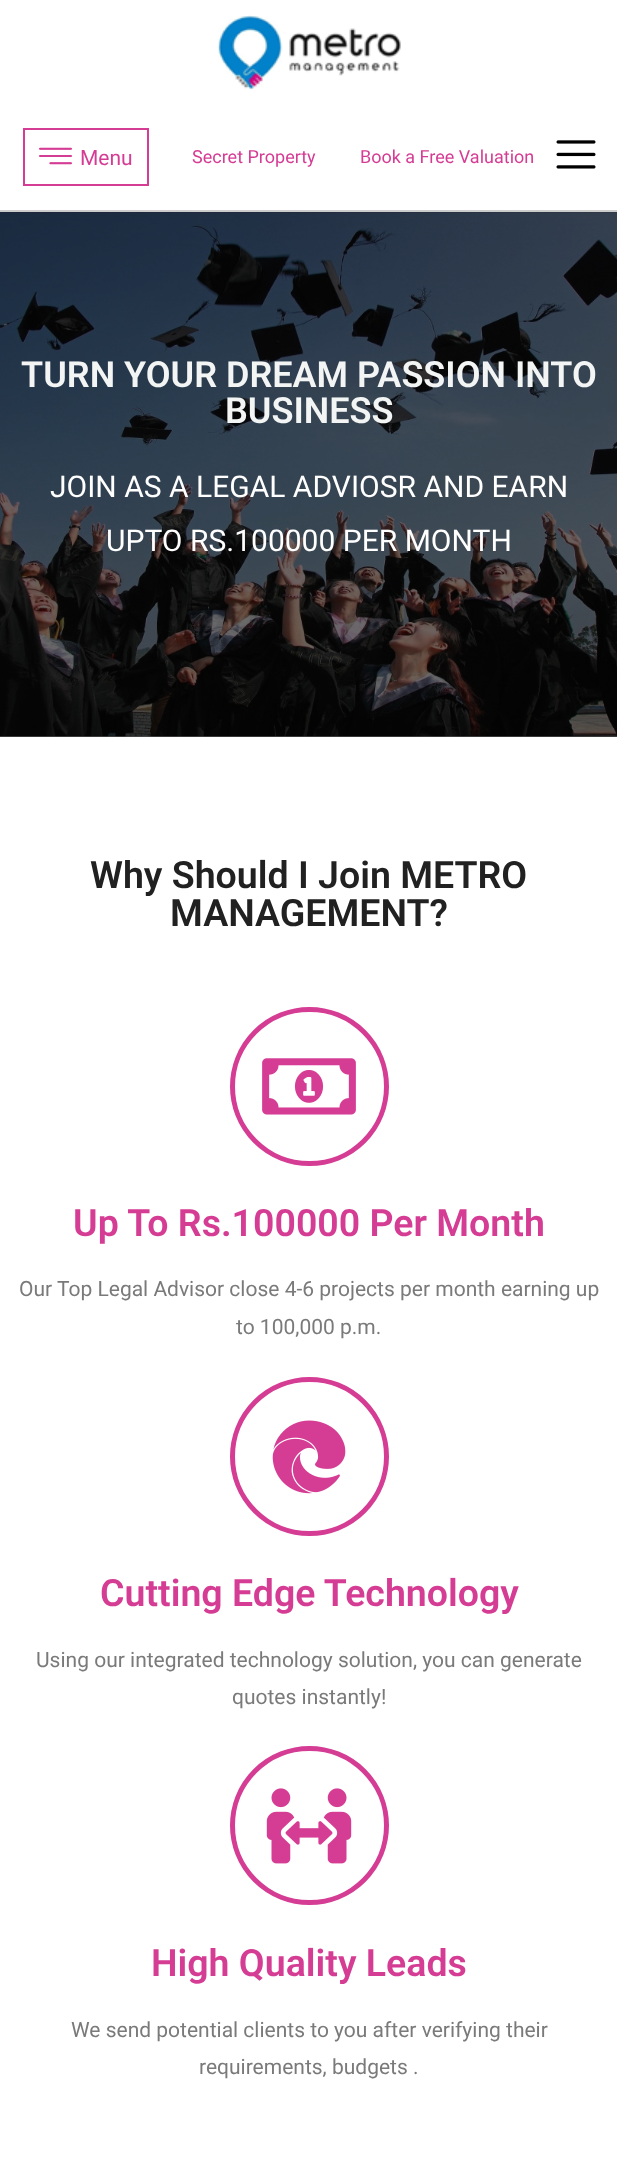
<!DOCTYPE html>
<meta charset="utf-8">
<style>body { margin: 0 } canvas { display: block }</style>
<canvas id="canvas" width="617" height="2159"></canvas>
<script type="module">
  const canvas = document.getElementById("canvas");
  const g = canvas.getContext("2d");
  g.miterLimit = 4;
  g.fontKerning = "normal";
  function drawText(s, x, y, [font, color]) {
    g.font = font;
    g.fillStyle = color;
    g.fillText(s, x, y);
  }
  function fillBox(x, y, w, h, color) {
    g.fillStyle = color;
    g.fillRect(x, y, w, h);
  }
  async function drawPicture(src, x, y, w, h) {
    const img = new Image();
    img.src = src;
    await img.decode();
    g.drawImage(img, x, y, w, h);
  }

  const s1 = ["21px Roboto", "#D53C94"];
  const s2 = ["18px Roboto", "#D53C94"];
  const s3 = ["600 36px Roboto", "#F3F4F4"];
  const s4 = ["30px Roboto", "#FFFFFF"];
  const s5 = ["600 37.5px Roboto", "#212121"];
  const s6 = ["600 37.5px Roboto", "#D53C94"];
  const s7 = ["21px Roboto", "#7A7A7A"];

  fillBox(0, 0, 617, 2159, "#FFFFFF");
  fillBox(0, 736, 617, 1, "#6C6C6C");
  fillBox(0, 210, 617, 2, "#CCCCCC");
  await drawPicture("pic1.png", 217, 15, 184, 75);
  g.strokeStyle = "#D53C94";
  g.lineWidth = 2;
  g.strokeRect(24, 129, 124, 56);
  await drawPicture("pic2.png", 39, 147, 33, 18);
  drawText("Menu", 80, 165, s1);
  drawText("Secret Property", 192, 163, s2);
  drawText("Book a Free Valuation", 360, 163, s2);
  await drawPicture("pic3.png", 556, 140, 40, 29);
  await drawPicture("pic4.png", 0, 212, 617, 525);
  drawText("TURN YOUR DREAM PASSION INTO", 21, 387, s3);
  drawText("BUSINESS", 225, 423, s3);
  drawText("JOIN AS A LEGAL ADVIOSR AND EARN", 50, 497, s4);
  drawText("UPTO RS.100000 PER MONTH", 106, 551, s4);
  drawText("Why Should I Join METRO", 90, 888, s5);
  drawText("MANAGEMENT?", 170, 926, s5);
  g.beginPath();
  g.arc(309.5, 1086.5, 77, 0, Math.PI * 2);
  g.lineWidth = 5;
  g.stroke();
  await drawPicture("pic5.png", 262, 1058, 94, 57);
  drawText("Up To Rs.100000 Per Month", 73, 1236, s6);
  drawText("Our Top Legal Advisor close 4-6 projects per month earning up", 19, 1296, s7);
  drawText("to 100,000 p.m.", 236, 1334, s7);
  g.beginPath();
  g.arc(309.5, 1456.5, 77, 0, Math.PI * 2);
  g.stroke();
  await drawPicture("pic6.png", 272, 1420, 74, 74);
  drawText("Cutting Edge Technology", 100, 1606, s6);
  drawText("Using our integrated technology solution, you can generate", 36, 1667, s7);
  drawText("quotes instantly!", 232, 1704, s7);
  g.beginPath();
  g.arc(309.5, 1825.5, 77, 0, Math.PI * 2);
  g.stroke();
  await drawPicture("pic7.png", 266, 1788, 86, 76);
  drawText("High Quality Leads", 151, 1976, s6);
  drawText("We send potential clients to you after verifying their", 71, 2037, s7);
  drawText("requirements, budgets .", 199, 2074, s7);
</script>
